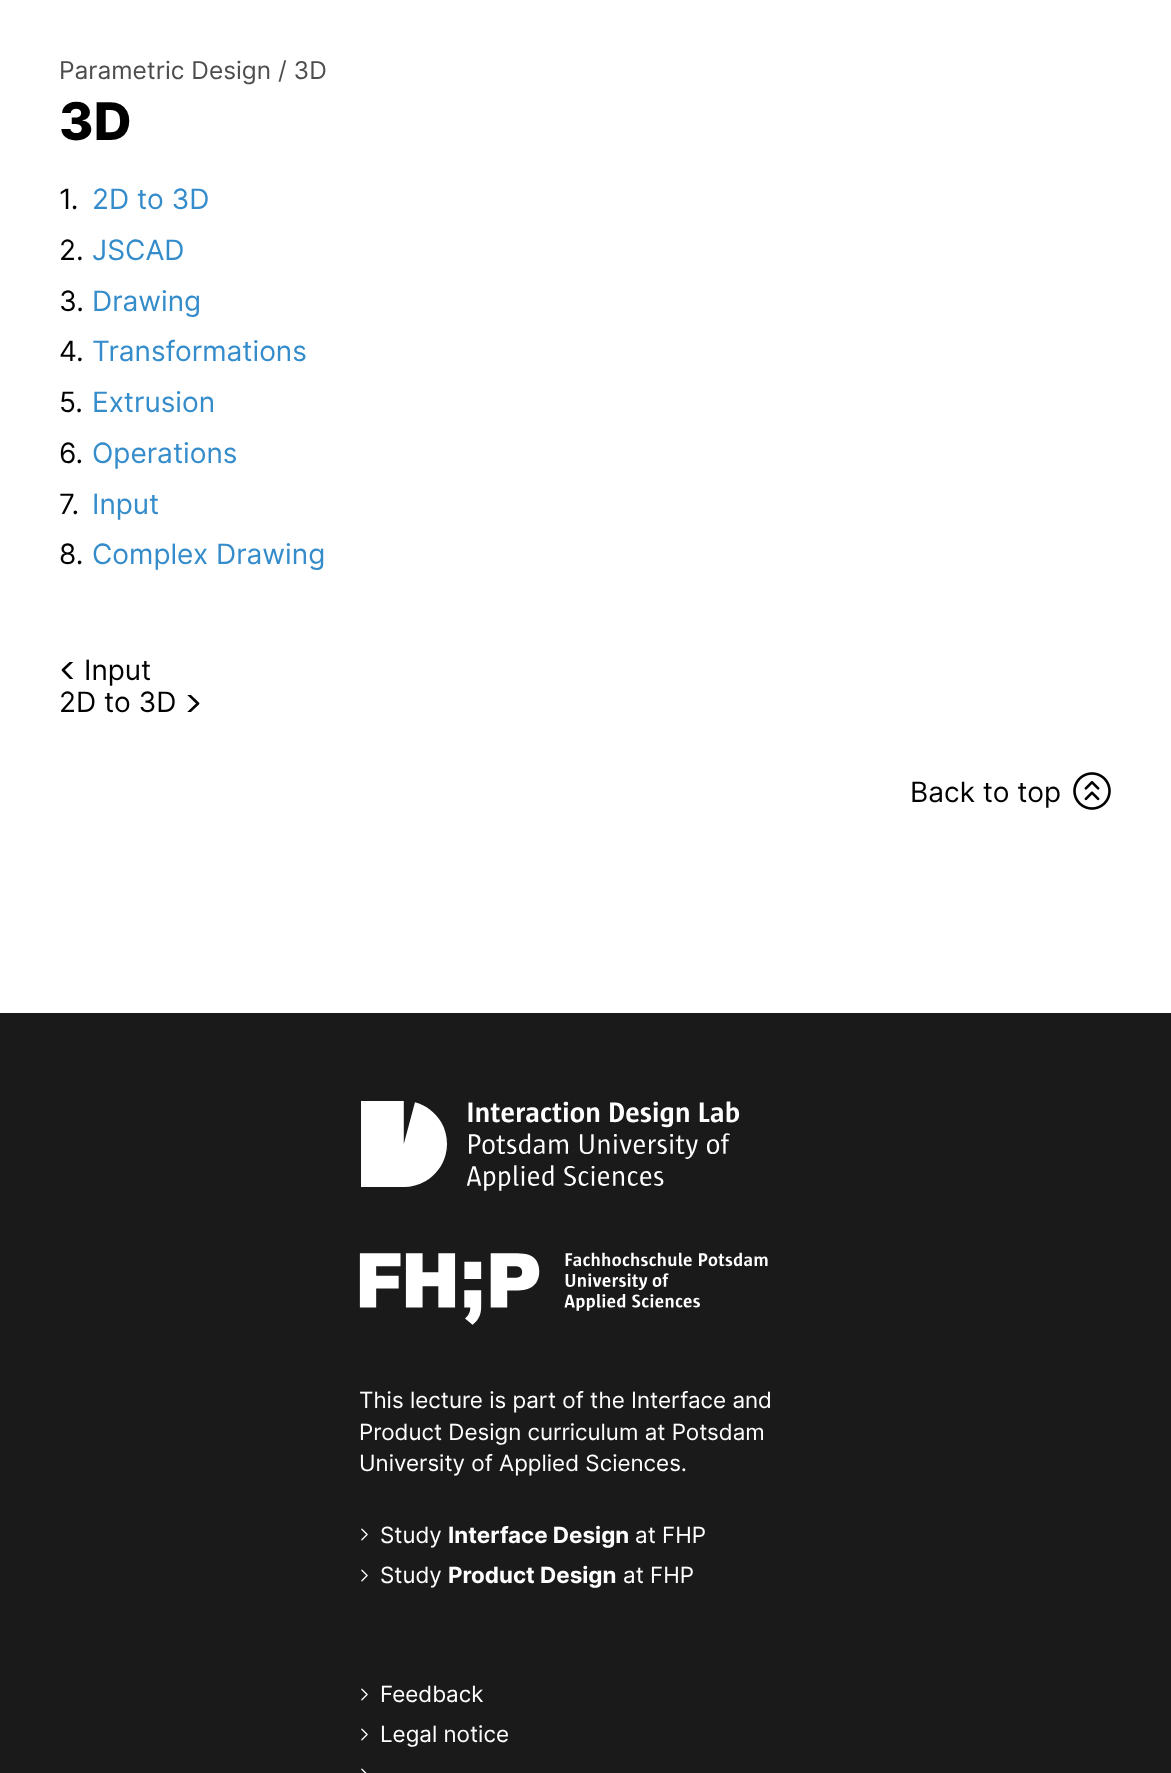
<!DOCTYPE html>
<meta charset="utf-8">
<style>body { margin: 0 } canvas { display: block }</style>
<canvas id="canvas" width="1171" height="1773"></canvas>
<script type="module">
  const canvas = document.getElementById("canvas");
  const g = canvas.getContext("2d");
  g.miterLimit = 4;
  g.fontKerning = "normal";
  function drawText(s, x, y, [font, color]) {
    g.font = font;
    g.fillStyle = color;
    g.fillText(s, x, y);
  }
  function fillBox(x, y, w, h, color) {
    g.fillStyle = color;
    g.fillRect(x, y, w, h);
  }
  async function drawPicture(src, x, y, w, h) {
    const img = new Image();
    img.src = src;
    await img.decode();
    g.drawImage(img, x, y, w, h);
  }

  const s1 = ["24.5px Inter", "#4D4D4D"];
  const s2 = ["800 52px Inter", "#000000"];
  const s3 = ["28px Inter", "#000000"];
  const s4 = ["28px Inter", "#358CCB"];
  const s5 = ["22.4px Inter", "#FFFFFF"];
  const s6 = ["bold 22.4px Inter", "#FFFFFF"];

  fillBox(0, 0, 1171, 1773, "#FFFFFF");
  drawText("Parametric Design / 3D", 59, 79, s1);
  drawText("3D", 59, 140, s2);
  drawText("1.", 59, 209, s3);
  drawText("2D to 3D", 92, 209, s4);
  drawText("2.", 59, 260, s3);
  drawText("JSCAD", 92, 260, s4);
  drawText("3.", 59, 311, s3);
  drawText("Drawing", 92, 311, s4);
  drawText("4.", 59, 361, s3);
  drawText("Transformations", 92, 361, s4);
  drawText("5.", 59, 412, s3);
  drawText("Extrusion", 92, 412, s4);
  drawText("6.", 59, 463, s3);
  drawText("Operations", 92, 463, s4);
  drawText("7.", 59, 514, s3);
  drawText("Input", 92, 514, s4);
  drawText("8.", 59, 564, s3);
  drawText("Complex Drawing", 92, 564, s4);
  g.save();
  g.beginPath();
  g.rect(60, 662, 17, 17);
  g.clip();
  g.beginPath();
  g.moveTo(73.5, 660);
  g.lineTo(63, 670);
  g.lineTo(73.5, 681);
  g.strokeStyle = "#000000";
  g.lineWidth = 2.6;
  g.lineCap = "round";
  g.lineJoin = "round";
  g.stroke();
  g.restore();
  drawText("Input", 84, 680, s3);
  drawText("2D to 3D", 59, 712, s3);
  g.save();
  g.beginPath();
  g.rect(184, 695, 17, 17);
  g.clip();
  g.beginPath();
  g.moveTo(187, 693);
  g.lineTo(198, 703.5);
  g.lineTo(187, 714);
  g.strokeStyle = "#000000";
  g.lineWidth = 2.6;
  g.lineCap = "round";
  g.lineJoin = "round";
  g.stroke();
  g.restore();
  drawText("Back to top", 910, 802, s3);
  await drawPicture("pic1.png", 1073, 772, 38, 38);
  fillBox(0, 1013, 1171, 760, "#1A1A1A");
  await drawPicture("pic2.png", 361, 1101, 379, 90);
  await drawPicture("pic3.png", 359, 1252, 409, 73);
  drawText("This lecture is part of the Interface and", 359, 1408, s5);
  drawText("Product Design curriculum at Potsdam", 359, 1440, s5);
  drawText("University of Applied Sciences.", 359, 1471, s5);
  await drawPicture("pic4.png", 361, 1528, 7, 13);
  drawText("Study", 380, 1543, s5);
  drawText("Interface Design", 448, 1543, s6);
  drawText("at FHP", 635, 1543, s5);
  await drawPicture("pic4.png", 361, 1569, 7, 13);
  drawText("Study", 380, 1583, s5);
  drawText("Product Design", 448, 1583, s6);
  drawText("at FHP", 623, 1583, s5);
  await drawPicture("pic4.png", 361, 1688, 7, 13);
  drawText("Feedback", 380, 1702, s5);
  await drawPicture("pic4.png", 361, 1728, 7, 13);
  drawText("Legal notice", 380, 1742, s5);
  await drawPicture("pic5.png", 361, 1768, 6, 5);
</script>
